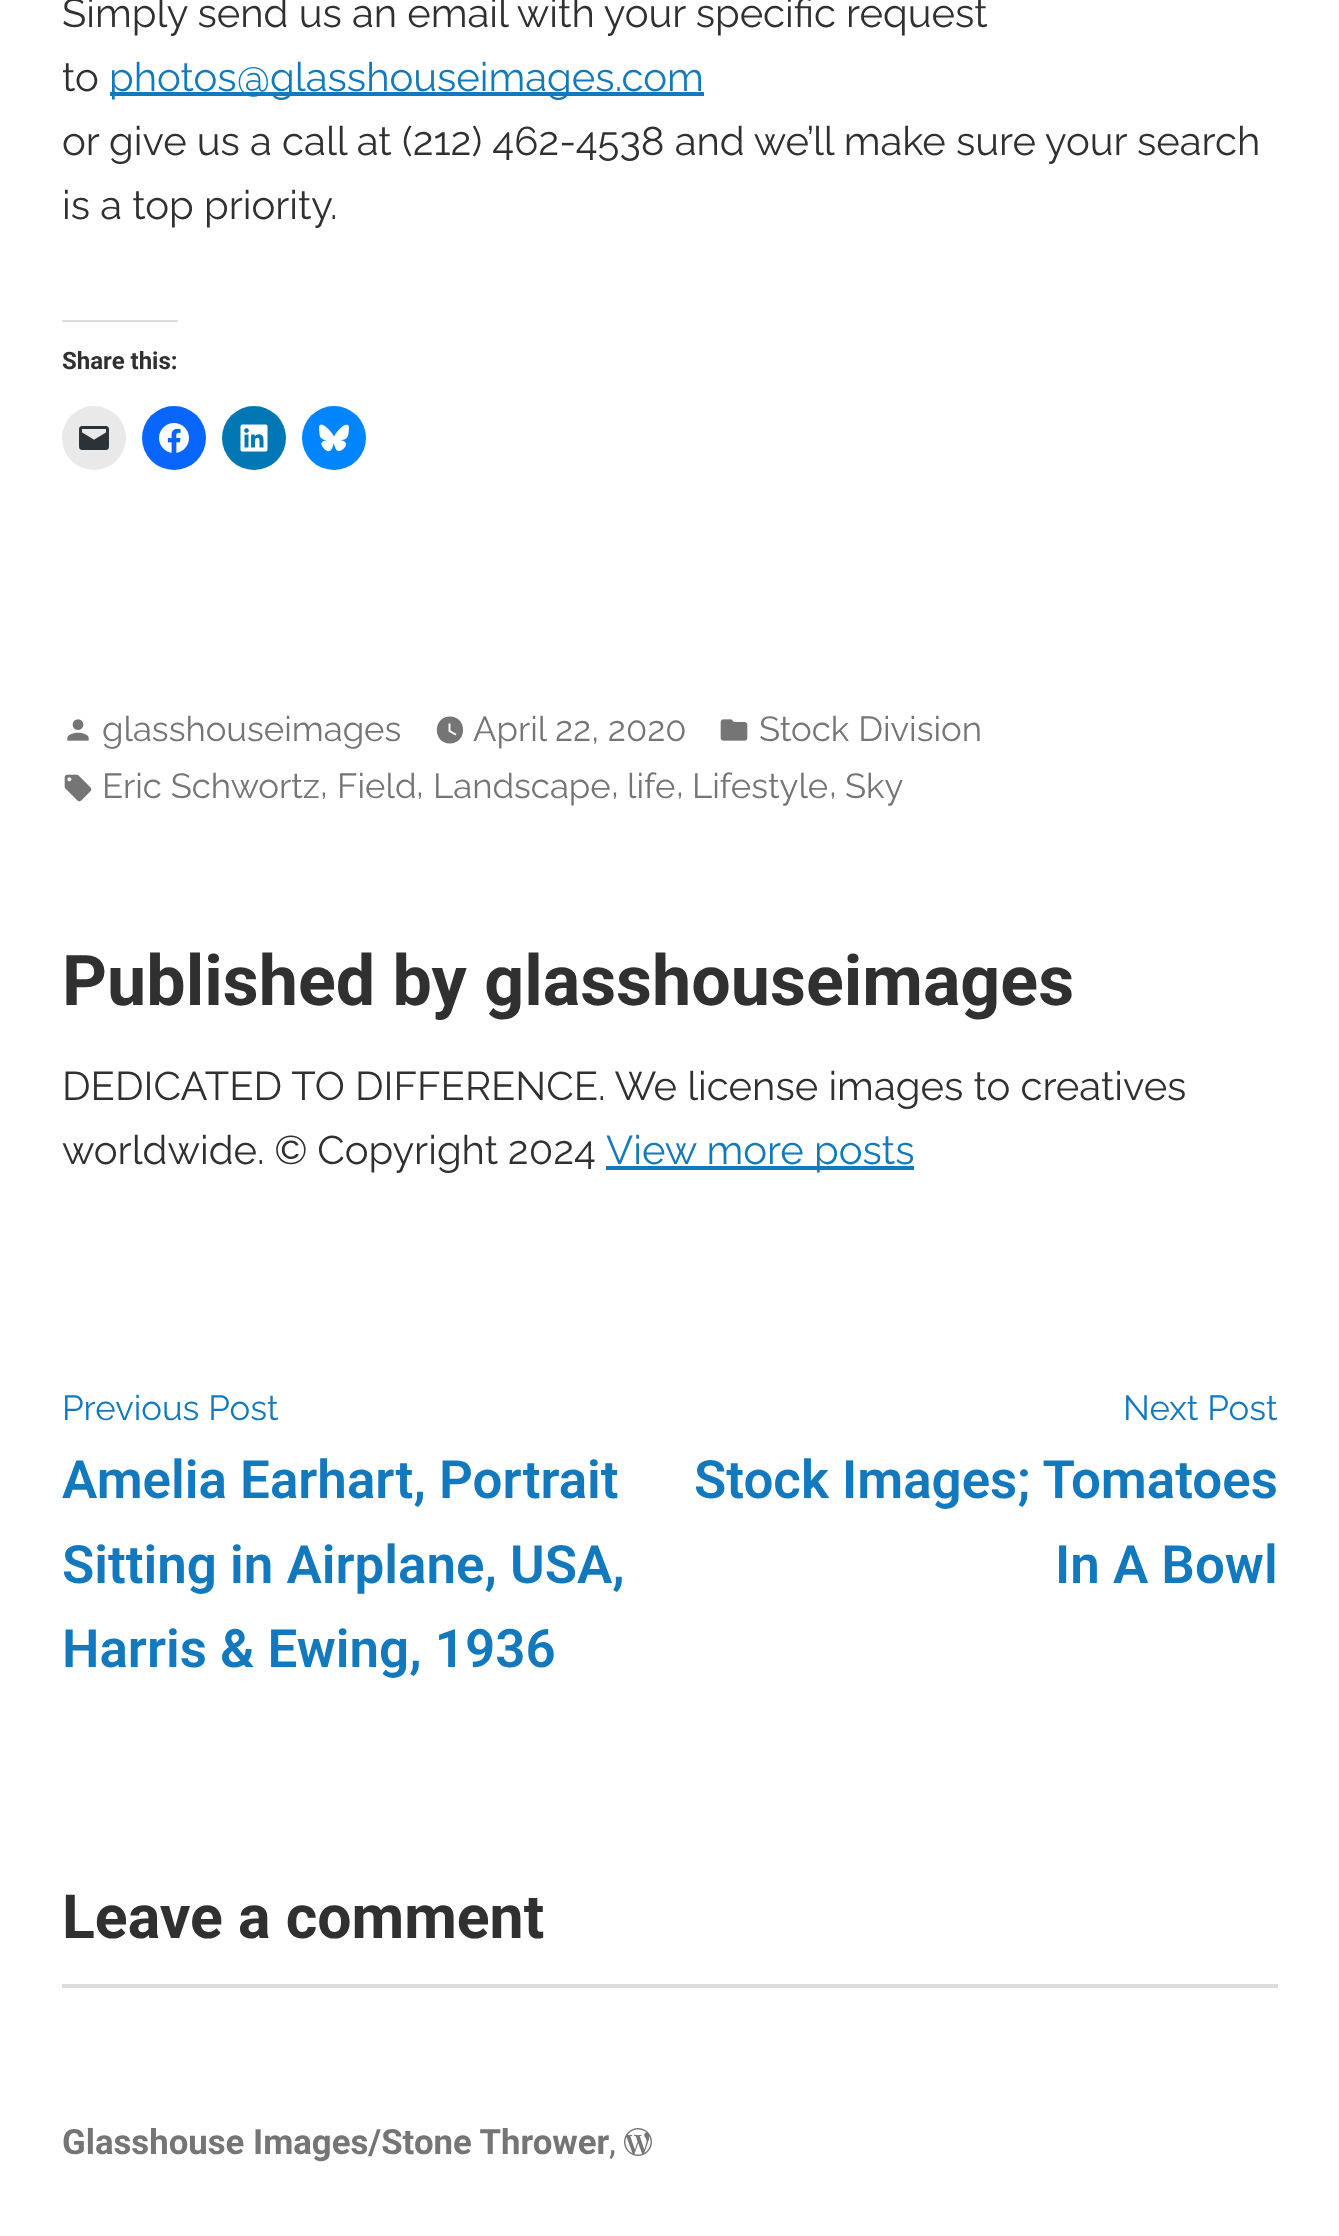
<!DOCTYPE html>
<meta charset="utf-8">
<style>body { margin: 0 } canvas { display: block }</style>
<canvas id="canvas" width="1339" height="2236"></canvas>
<script type="module">
  const canvas = document.getElementById("canvas");
  const g = canvas.getContext("2d");
  g.miterLimit = 4;
  g.fontKerning = "normal";
  function drawText(s, x, y, [font, color]) {
    g.font = font;
    g.fillStyle = color;
    g.fillText(s, x, y);
  }
  function fillBox(x, y, w, h, color) {
    g.fillStyle = color;
    g.fillRect(x, y, w, h);
  }
  async function drawPicture(src, x, y, w, h) {
    const img = new Image();
    img.src = src;
    await img.decode();
    g.drawImage(img, x, y, w, h);
  }

  const s1 = ["40px Raleway", "#303030"];
  const s2 = ["40px Raleway", "#1279BE"];
  const s3 = ["bold 24px Roboto", "#303030"];
  const s4 = ["34.75px Raleway", "#757575"];
  const s5 = ["bold 70px Roboto", "#303030"];
  const s6 = ["34.75px Raleway", "#1279BE"];
  const s7 = ["600 52.9px Roboto", "#1279BE"];
  const s8 = ["bold 60.75px Roboto", "#303030"];
  const s9 = ["bold 34.75px Roboto", "#757575"];
  const s10 = ["34.75px Roboto", "#757575"];

  fillBox(0, 0, 1339, 2236, "#FFFFFF");
  drawText("Simply send us an email with your specific request", 62, 27, s1);
  drawText("to", 62, 91, s1);
  fillBox(110, 92, 594, 4, "#1279BE");
  drawText("photos@glasshouseimages.com", 109, 91, s2);
  drawText("or give us a call at (212) 462-4538 and we’ll make sure your search", 62, 155, s1);
  drawText("is a top priority.", 62, 219, s1);
  fillBox(62, 320, 116, 2, "#DCDCDE");
  drawText("Share this:", 62, 369, s3);
  g.fillStyle = "#E9E9E9";
  g.beginPath();
  g.arc(94, 438, 32, 0, Math.PI * 2);
  g.fill();
  await drawPicture("pic1.png", 79, 426, 30, 24);
  g.fillStyle = "#0866FF";
  g.beginPath();
  g.arc(174, 438, 32, 0, Math.PI * 2);
  g.fill();
  await drawPicture("pic2.png", 159, 423, 30, 30);
  g.fillStyle = "#0077B5";
  g.beginPath();
  g.arc(254, 438, 32, 0, Math.PI * 2);
  g.fill();
  await drawPicture("pic3.png", 240, 424, 28, 28);
  g.fillStyle = "#0085FF";
  g.beginPath();
  g.arc(334, 438, 32, 0, Math.PI * 2);
  g.fill();
  await drawPicture("pic4.png", 319, 424, 30, 28);
  await drawPicture("pic5.png", 67, 719, 22, 22);
  drawText("glasshouseimages", 102, 741, s4);
  g.beginPath();
  g.moveTo(450, 716.5);
  g.bezierCurveTo(432.5, 716.5, 432.5, 743.5, 450, 743.5);
  g.bezierCurveTo(467.5, 743.5, 467.5, 716.5, 450, 716.5);
  g.closePath();
  g.moveTo(455.5, 735.5);
  g.lineTo(448.5, 731.5);
  g.lineTo(448.5, 723.5);
  g.lineTo(450.5, 723.5);
  g.lineTo(450.5, 730.5);
  g.lineTo(456.5, 734);
  g.closePath();
  g.fill();
  drawText("April 22, 2020", 473, 741, s4);
  await drawPicture("pic6.png", 720, 719, 28, 22);
  drawText("Stock Division", 759, 741, s4);
  await drawPicture("pic7.png", 64, 774, 28, 28);
  drawText("Eric Schwortz", 102, 798, s4);
  drawText(",", 320, 796, s4);
  drawText("Field", 337, 798, s4);
  drawText(",", 416, 796, s4);
  drawText("Landscape", 433, 798, s4);
  drawText(",", 611, 796, s4);
  drawText("life", 627, 798, s4);
  drawText(",", 676, 796, s4);
  drawText("Lifestyle", 692, 798, s4);
  drawText(",", 829, 796, s4);
  drawText("Sky", 845, 798, s4);
  drawText("Published by glasshouseimages", 62, 1005, s5);
  drawText("DEDICATED TO DIFFERENCE. We license images to creatives", 62, 1100, s1);
  g.wordSpacing = "-0.5px";
  drawText("worldwide. © Copyright 2024", 62, 1164, s1);
  fillBox(606, 1166, 308, 4, "#1279BE");
  g.wordSpacing = "0px";
  drawText("View more posts", 606, 1164, s2);
  drawText("Previous Post", 62, 1420, s6);
  drawText("Amelia Earhart, Portrait", 62, 1498, s7);
  drawText("Sitting in Airplane, USA,", 62, 1583, s7);
  drawText("Harris & Ewing, 1936", 62, 1667, s7);
  drawText("Next Post", 1123, 1420, s6);
  drawText("Stock Images; Tomatoes", 694, 1498, s7);
  drawText("In A Bowl", 1055, 1583, s7);
  drawText("Leave a comment", 62, 1938, s8);
  fillBox(62, 1984, 1216, 4, "#DCDCDE");
  drawText("Glasshouse Images/Stone Thrower", 62, 2154, s9);
  drawText(",", 609, 2154, s10);
  await drawPicture("pic8.png", 624, 2128, 28, 28);
</script>
